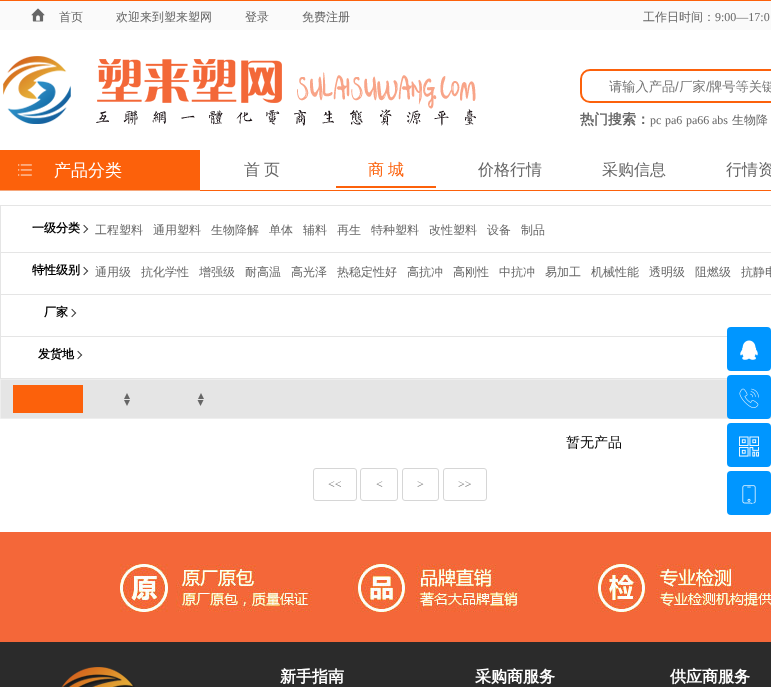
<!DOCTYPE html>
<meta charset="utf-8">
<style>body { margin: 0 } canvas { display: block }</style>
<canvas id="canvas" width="771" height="687"></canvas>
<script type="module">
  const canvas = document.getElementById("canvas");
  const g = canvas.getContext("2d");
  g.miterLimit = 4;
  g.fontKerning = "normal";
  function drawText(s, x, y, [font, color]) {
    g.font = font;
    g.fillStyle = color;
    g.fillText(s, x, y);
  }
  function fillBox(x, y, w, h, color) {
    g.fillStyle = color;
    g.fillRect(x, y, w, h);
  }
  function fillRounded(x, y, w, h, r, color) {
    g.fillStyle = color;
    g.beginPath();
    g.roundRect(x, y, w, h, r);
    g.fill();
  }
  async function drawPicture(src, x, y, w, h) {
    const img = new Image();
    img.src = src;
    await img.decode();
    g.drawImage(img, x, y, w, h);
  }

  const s1 = ["500 12px WenQuanYi Zen Hei", "#666666"];
  const s2 = ["12px Liberation Serif", "#666666"];
  const s3 = ["500 13.25px WenQuanYi Zen Hei", "#757575"];
  const s4 = ["13.25px Liberation Sans", "#757575"];
  const s5 = ["bold 14px WenQuanYi Zen Hei", "#666666"];
  const s6 = ["500 17px WenQuanYi Zen Hei", "#FFFFFF"];
  const s7 = ["500 16px WenQuanYi Zen Hei", "#666666"];
  const s8 = ["500 16px WenQuanYi Zen Hei", "#FC610B"];
  const s9 = ["bold 12px WenQuanYi Zen Hei", "#000000"];
  const s10 = ["500 14px WenQuanYi Zen Hei", "#000000"];
  const s11 = ["12px Liberation Serif", "#7D7D7D"];
  const s12 = ["bold 16px WenQuanYi Zen Hei", "#FFFFFF"];

  fillBox(0, 0, 771, 687, "#FFFFFF");
  fillBox(0, 0, 771, 1, "#FC610B");
  fillBox(200, 190, 571, 1, "#FC610B");
  fillBox(0, 1, 771, 29, "#FAFAFA");
  await drawPicture("pic1.png", 31, 8, 14, 14);
  drawText("首页", 59, 21, s1);
  drawText("欢迎来到塑来塑网", 116, 21, s1);
  drawText("登录", 245, 21, s1);
  drawText("免费注册", 302, 21, s1);
  drawText("工作日时间：", 643, 21, s1);
  drawText("9:00—17:0", 715, 21, s2);
  await drawPicture("pic2.png", 3, 56, 473, 70);
  g.beginPath();
  g.moveTo(590, 70);
  g.lineTo(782, 70);
  g.lineTo(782, 102);
  g.lineTo(590, 102);
  g.bezierCurveTo(585, 102, 581, 98, 581, 93);
  g.lineTo(581, 79);
  g.bezierCurveTo(581, 74, 585, 70, 590, 70);
  g.closePath();
  g.strokeStyle = "#FC610B";
  g.lineWidth = 2;
  g.stroke();
  drawText("请输入产品 厂家", 609, 91, s3);
  drawText("/", 706, 91, s4);
  drawText("牌号等关键", 709, 91, s3);
  drawText("/", 675, 91, s4);
  drawText("热门搜索：", 580, 124, s5);
  drawText("pc", 650, 124, s2);
  drawText("pa6", 665, 124, s2);
  drawText("pa66", 686, 124, s2);
  drawText("abs", 712, 124, s2);
  drawText("生物降", 732, 124, s1);
  fillBox(0, 150, 200, 40, "#FC610B");
  fillBox(0, 190, 200, 1, "#F5A87D");
  await drawPicture("pic3.png", 18, 164, 14, 12);
  drawText("产品分类", 54, 176, s6);
  drawText("首", 244, 175, s7);
  drawText("页", 264, 175, s7);
  drawText("商", 368, 175, s8);
  drawText("城", 388, 175, s8);
  fillBox(336, 186, 100, 2, "#FC610B");
  drawText("价格行情", 478, 175, s7);
  drawText("采购信息", 602, 175, s7);
  drawText("行情资", 726, 175, s7);
  fillBox(0, 205, 771, 1, "#E5E5E5");
  fillBox(0, 205, 1, 174, "#E5E5E5");
  fillBox(1, 252, 770, 1, "#E5E5E5");
  drawText("一级分类", 32, 232, s9);
  await drawPicture("pic4.png", 83, 224, 6, 10);
  drawText("工程塑料", 95, 234, s1);
  drawText("通用塑料", 153, 234, s1);
  drawText("生物降解", 211, 234, s1);
  drawText("单体", 269, 234, s1);
  drawText("辅料", 303, 234, s1);
  drawText("再生", 337, 234, s1);
  drawText("特种塑料", 371, 234, s1);
  drawText("改性塑料", 429, 234, s1);
  drawText("设备", 487, 234, s1);
  drawText("制品", 521, 234, s1);
  fillBox(1, 294, 770, 1, "#E5E5E5");
  drawText("特性级别", 32, 274, s9);
  await drawPicture("pic4.png", 83, 266, 6, 10);
  drawText("通用级", 95, 276, s1);
  drawText("抗化学性", 141, 276, s1);
  drawText("增强级", 199, 276, s1);
  drawText("耐高温", 245, 276, s1);
  drawText("高光泽", 291, 276, s1);
  drawText("热稳定性好", 337, 276, s1);
  drawText("高抗冲", 407, 276, s1);
  drawText("高刚性", 453, 276, s1);
  drawText("中抗冲", 499, 276, s1);
  drawText("易加工", 545, 276, s1);
  drawText("机械性能", 591, 276, s1);
  drawText("透明级", 649, 276, s1);
  drawText("阻燃级", 695, 276, s1);
  drawText("抗静电", 741, 276, s1);
  fillBox(1, 336, 726, 1, "#E5E5E5");
  drawText("厂家", 44, 316, s9);
  await drawPicture("pic4.png", 71, 308, 6, 10);
  fillBox(1, 378, 770, 1, "#E5E5E5");
  drawText("发货地", 38, 358, s9);
  await drawPicture("pic4.png", 77, 350, 6, 10);
  g.fillStyle = "#E5E5E5";
  g.beginPath();
  g.rect(0.5, 379.5, 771, 39);
  g.fill();
  g.strokeStyle = "#EEEEEE";
  g.lineWidth = 1;
  g.stroke();
  fillBox(13, 385, 70, 28, "#FC610B");
  g.fillStyle = "#666666";
  g.beginPath();
  g.moveTo(130, 399);
  g.lineTo(124, 399);
  g.lineTo(127, 393);
  g.closePath();
  g.fill();
  g.beginPath();
  g.moveTo(124, 400);
  g.lineTo(130, 400);
  g.lineTo(127, 406);
  g.closePath();
  g.fill();
  g.beginPath();
  g.moveTo(204, 399);
  g.lineTo(198, 399);
  g.lineTo(201, 393);
  g.closePath();
  g.fill();
  g.beginPath();
  g.moveTo(197.5, 400);
  g.lineTo(203.5, 400);
  g.lineTo(200.5, 406);
  g.closePath();
  g.fill();
  drawText("暂无产品", 566, 447, s10);
  fillRounded(727, 327, 44, 44, 4, "#0096FF");
  await drawPicture("pic5.png", 740, 340, 18, 20);
  fillRounded(727, 375, 44, 44, 4, "#0096FF");
  await drawPicture("pic6.png", 739, 388, 20, 20);
  fillRounded(727, 423, 44, 44, 4, "#0096FF");
  await drawPicture("pic7.png", 739, 436, 20, 21);
  fillRounded(727, 471, 44, 44, 4, "#0096FF");
  await drawPicture("pic8.png", 742, 485, 14, 19);
  g.beginPath();
  g.roundRect(313.5, 468.5, 43, 32, 2.5);
  g.strokeStyle = "#D6D6D6";
  g.stroke();
  drawText("<<", 328, 488, s11);
  g.beginPath();
  g.roundRect(360.5, 468.5, 37, 32, 2.5);
  g.stroke();
  drawText("<", 376, 488, s11);
  g.beginPath();
  g.roundRect(402.5, 468.5, 36, 32, 2.5);
  g.stroke();
  drawText(">", 417, 488, s11);
  g.beginPath();
  g.roundRect(443.5, 468.5, 43, 32, 2.5);
  g.stroke();
  drawText(">>", 458, 488, s11);
  fillBox(0, 532, 771, 110, "#F46739");
  await drawPicture("pic9.png", 120, 564, 651, 48);
  fillBox(0, 642, 771, 45, "#2B2B2B");
  await drawPicture("pic10.png", 61, 667, 74, 20);
  drawText("新手指南", 280, 682, s12);
  drawText("采购商服务", 475, 682, s12);
  drawText("供应商服务", 670, 682, s12);
</script>
